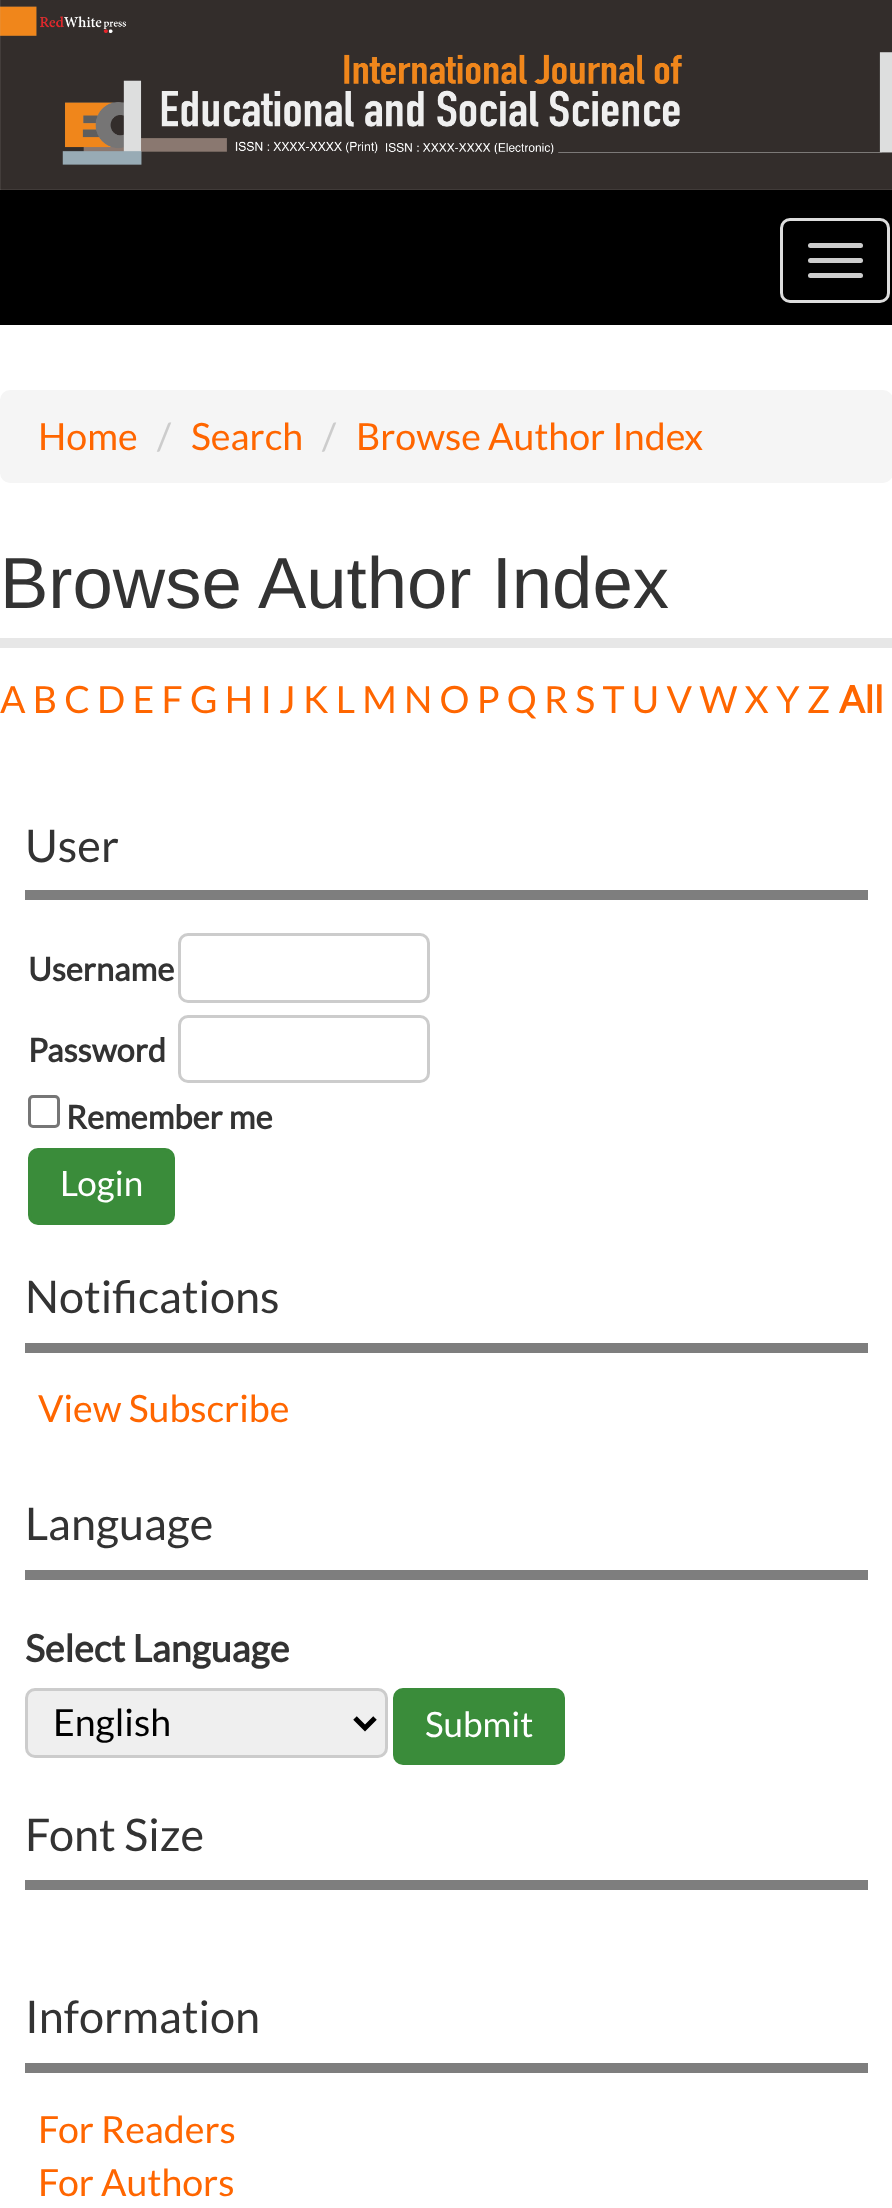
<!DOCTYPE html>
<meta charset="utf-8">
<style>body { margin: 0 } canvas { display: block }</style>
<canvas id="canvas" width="892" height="2208"></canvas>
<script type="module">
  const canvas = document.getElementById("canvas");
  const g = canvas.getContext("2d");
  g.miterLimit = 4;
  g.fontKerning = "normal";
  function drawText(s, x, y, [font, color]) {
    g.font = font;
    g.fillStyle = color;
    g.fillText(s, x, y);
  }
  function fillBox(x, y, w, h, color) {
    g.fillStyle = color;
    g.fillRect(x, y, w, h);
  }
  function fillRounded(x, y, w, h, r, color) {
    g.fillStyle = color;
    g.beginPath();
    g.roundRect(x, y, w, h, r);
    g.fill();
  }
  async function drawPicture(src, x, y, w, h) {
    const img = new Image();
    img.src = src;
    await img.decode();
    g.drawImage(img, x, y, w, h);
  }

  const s1 = ["37.5px Lato", "#FF6600"];
  const s2 = ["37.5px Lato", "#CCCCCC"];
  const s3 = ["72.5px Liberation Sans", "#333333"];
  const s4 = ["bold 37.5px Lato", "#FF6600"];
  const s5 = ["45px Lato", "#333333"];
  const s6 = ["bold 32.5px Lato", "#333333"];
  const s7 = ["35px Lato", "#FFFFFF"];
  const s8 = ["bold 37.5px Lato", "#333333"];
  const s9 = ["37.5px Lato", "#000000"];

  fillBox(0, 0, 892, 2208, "#FFFFFF");
  await drawPicture("pic1.png", 0, 0, 892, 190);
  fillBox(0, 190, 892, 135, "#000000");
  g.beginPath();
  g.roundRect(781.5, 219.5, 107, 82, 8.5);
  g.strokeStyle = "#DDDDDD";
  g.lineWidth = 3;
  g.stroke();
  fillRounded(808, 243, 55, 5, 2.5, "#CCCCCC");
  fillRounded(808, 258, 55, 5, 2.5, "#CCCCCC");
  fillRounded(808, 273, 55, 5, 2.5, "#CCCCCC");
  fillRounded(0, 390, 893, 93, 10, "#F5F5F5");
  drawText("Home", 38, 450, s1);
  drawText("/", 157, 450, s2);
  drawText("Search", 191, 450, s1);
  drawText("/", 322, 450, s2);
  drawText("Browse Author Index", 356, 450, s1);
  fillBox(0, 638, 892, 10, "#E7E7E7");
  drawText("Browse Author Index", 0, 608, s3);
  drawText("A B C D E F G H I J K L M N O P Q R S T U V W X Y Z", 0, 713, s1);
  drawText("All", 839, 713, s4);
  fillBox(25, 890, 843, 10, "#7E7E7E");
  drawText("User", 25, 862, s5);
  drawText("Username", 28, 981, s6);
  g.beginPath();
  g.roundRect(179.5, 934.5, 249, 67, 8.5);
  g.strokeStyle = "#CCCCCC";
  g.stroke();
  drawText("Password", 28, 1062, s6);
  g.beginPath();
  g.roundRect(179.5, 1016.5, 249, 65, 8.5);
  g.stroke();
  g.beginPath();
  g.roundRect(29.5, 1096.5, 29, 30, 3.5);
  g.strokeStyle = "#767676";
  g.stroke();
  drawText("Remember me", 66, 1129, s6);
  g.fillStyle = "#3A8C3A";
  g.beginPath();
  g.roundRect(29.5, 1149.5, 144, 74, 8.5);
  g.fill();
  g.strokeStyle = "#3A8C3A";
  g.stroke();
  drawText("Login", 60, 1196, s7);
  fillBox(25, 1343, 843, 10, "#7E7E7E");
  drawText("Notifications", 25, 1313, s5);
  drawText("View Subscribe", 38, 1422, s1);
  fillBox(25, 1570, 843, 10, "#7E7E7E");
  drawText("Language", 25, 1540, s5);
  drawText("Select Language", 25, 1662, s8);
  g.fillStyle = "#EFEFEF";
  g.beginPath();
  g.roundRect(26.5, 1689.5, 360, 67, 8.5);
  g.fill();
  g.strokeStyle = "#CCCCCC";
  g.stroke();
  g.beginPath();
  g.moveTo(355, 1718);
  g.lineTo(365, 1728);
  g.lineTo(375, 1718);
  g.strokeStyle = "#000000";
  g.lineWidth = 5;
  g.stroke();
  drawText("English", 53, 1736, s9);
  g.fillStyle = "#3A8C3A";
  g.beginPath();
  g.roundRect(394.5, 1689.5, 169, 74, 8.5);
  g.fill();
  g.strokeStyle = "#3A8C3A";
  g.lineWidth = 3;
  g.stroke();
  drawText("Submit", 425, 1737, s7);
  fillBox(25, 1880, 843, 10, "#7E7E7E");
  drawText("Font Size", 25, 1851, s5);
  fillBox(25, 2063, 843, 10, "#7E7E7E");
  drawText("Information", 25, 2033, s5);
  drawText("For Readers", 38, 2143, s1);
  drawText("For Authors", 38, 2196, s1);
</script>
